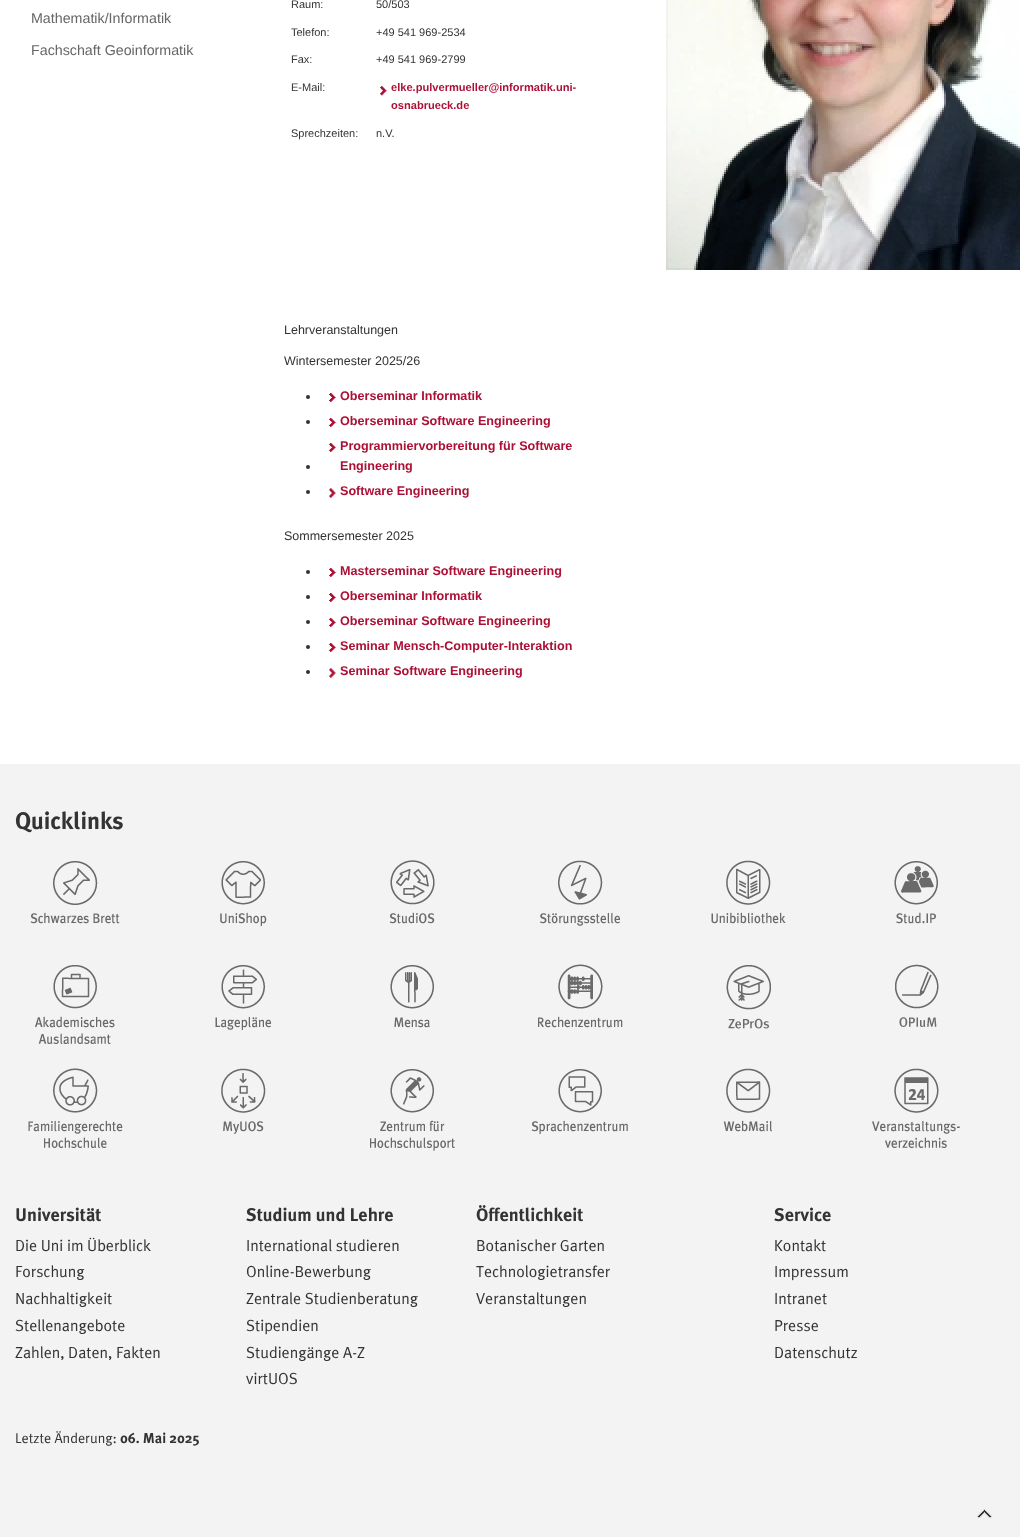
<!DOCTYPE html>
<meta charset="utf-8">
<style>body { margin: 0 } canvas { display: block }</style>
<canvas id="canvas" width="1020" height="1537"></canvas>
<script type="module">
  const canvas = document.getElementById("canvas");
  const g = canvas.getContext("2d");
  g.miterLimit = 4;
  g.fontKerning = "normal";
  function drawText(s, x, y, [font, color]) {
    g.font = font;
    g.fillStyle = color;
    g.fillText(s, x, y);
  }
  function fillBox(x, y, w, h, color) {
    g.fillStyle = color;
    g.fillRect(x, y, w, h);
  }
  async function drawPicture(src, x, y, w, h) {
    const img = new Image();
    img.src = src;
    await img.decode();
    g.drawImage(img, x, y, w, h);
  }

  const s1 = ["14.25px Liberation Sans", "#666666"];
  const s2 = ["11px Liberation Sans", "#333333"];
  const s3 = ["bold 11.1px Liberation Sans", "#AC1035"];
  const s4 = ["12.5px Liberation Sans", "#333333"];
  const s5 = ["bold 12.6px Liberation Sans", "#AC1035"];
  const s6 = ["bold 24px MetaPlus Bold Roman", "#333333"];
  const s7 = ["bold 18.25px MetaPlus Bold Roman", "#333333"];
  const s8 = ["16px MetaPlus", "#333333"];
  const s9 = ["14.25px MetaPlus", "#333333"];
  const s10 = ["bold 14.25px MetaPlus Bold Roman", "#333333"];

  fillBox(0, 0, 1020, 1537, "#FFFFFF");
  drawText("Mathematik/Informatik", 31, 23, s1);
  drawText("Fachschaft Geoinformatik", 31, 55, s1);
  drawText("Raum:", 291, 8, s2);
  drawText("50/503", 376, 8, s2);
  drawText("Telefon:", 291, 36, s2);
  drawText("+49 541 969-2534", 376, 36, s2);
  drawText("Fax:", 291, 63, s2);
  drawText("+49 541 969-2799", 376, 63, s2);
  drawText("E-Mail:", 291, 91, s2);
  await drawPicture("pic1.png", 380, 86, 7, 10);
  drawText("elke.pulvermueller@informatik.uni-", 391, 91, s3);
  drawText("osnabrueck.de", 391, 109, s3);
  drawText("Sprechzeiten:", 291, 137, s2);
  drawText("n.V.", 376, 137, s2);
  await drawPicture("pic2.png", 666, 0, 354, 270);
  drawText("Lehrveranstaltungen", 284, 334, s4);
  drawText("Wintersemester 2025/26", 284, 365, s4);
  g.beginPath();
  g.arc(308, 397, 2, 0, Math.PI * 2);
  g.fill();
  await drawPicture("pic3.png", 329, 393, 7, 9);
  drawText("Oberseminar Informatik", 340, 400, s5);
  g.fillStyle = "#333333";
  g.beginPath();
  g.arc(308, 422, 2, 0, Math.PI * 2);
  g.fill();
  await drawPicture("pic4.png", 329, 418, 8, 9);
  drawText("Oberseminar Software Engineering", 340, 425, s5);
  g.fillStyle = "#333333";
  g.beginPath();
  g.arc(308, 467, 2, 0, Math.PI * 2);
  g.fill();
  await drawPicture("pic4.png", 329, 443, 8, 9);
  drawText("Programmiervorbereitung für Software", 340, 450, s5);
  drawText("Engineering", 340, 470, s5);
  g.fillStyle = "#333333";
  g.beginPath();
  g.arc(308, 492, 2, 0, Math.PI * 2);
  g.fill();
  await drawPicture("pic5.png", 329, 488, 8, 10);
  drawText("Software Engineering", 340, 495, s5);
  drawText("Sommersemester 2025", 284, 540, s4);
  g.beginPath();
  g.arc(308, 572, 2, 0, Math.PI * 2);
  g.fill();
  await drawPicture("pic4.png", 329, 568, 8, 9);
  drawText("Masterseminar Software Engineering", 340, 575, s5);
  g.fillStyle = "#333333";
  g.beginPath();
  g.arc(308, 597, 2, 0, Math.PI * 2);
  g.fill();
  await drawPicture("pic3.png", 329, 593, 7, 9);
  drawText("Oberseminar Informatik", 340, 600, s5);
  g.fillStyle = "#333333";
  g.beginPath();
  g.arc(308, 622, 2, 0, Math.PI * 2);
  g.fill();
  await drawPicture("pic4.png", 329, 618, 8, 9);
  drawText("Oberseminar Software Engineering", 340, 625, s5);
  g.fillStyle = "#333333";
  g.beginPath();
  g.arc(308, 647, 2, 0, Math.PI * 2);
  g.fill();
  await drawPicture("pic4.png", 329, 643, 8, 9);
  drawText("Seminar Mensch-Computer-Interaktion", 340, 650, s5);
  g.fillStyle = "#333333";
  g.beginPath();
  g.arc(308, 672, 2, 0, Math.PI * 2);
  g.fill();
  await drawPicture("pic5.png", 329, 668, 8, 10);
  drawText("Seminar Software Engineering", 340, 675, s5);
  fillBox(0, 764, 1020, 773, "#F3F3F3");
  drawText("Quicklinks", 15, 829, s6);
  await drawPicture("pic6.png", 30, 861, 90, 63);
  await drawPicture("pic7.png", 220, 861, 47, 66);
  await drawPicture("pic8.png", 389, 860, 46, 64);
  await drawPicture("pic9.png", 540, 860, 80, 66);
  await drawPicture("pic10.png", 711, 860, 75, 64);
  await drawPicture("pic11.png", 894, 861, 44, 63);
  await drawPicture("pic12.png", 35, 965, 80, 79);
  await drawPicture("pic13.png", 215, 965, 56, 66);
  await drawPicture("pic14.png", 390, 965, 44, 63);
  await drawPicture("pic15.png", 538, 964, 85, 64);
  await drawPicture("pic16.png", 726, 965, 45, 64);
  await drawPicture("pic17.png", 895, 964, 44, 63);
  await drawPicture("pic18.png", 28, 1068, 95, 80);
  await drawPicture("pic19.png", 221, 1068, 45, 66);
  await drawPicture("pic20.png", 370, 1069, 85, 82);
  await drawPicture("pic21.png", 531, 1069, 97, 66);
  await drawPicture("pic22.png", 723, 1068, 49, 64);
  await drawPicture("pic23.png", 872, 1068, 88, 80);
  drawText("Universität", 15, 1221, s7);
  drawText("Die Uni im Überblick", 15, 1251, s8);
  drawText("Forschung", 15, 1277, s8);
  drawText("Nachhaltigkeit", 15, 1304, s8);
  drawText("Stellenangebote", 15, 1331, s8);
  drawText("Zahlen, Daten, Fakten", 15, 1358, s8);
  drawText("Studium und Lehre", 246, 1221, s7);
  drawText("International studieren", 246, 1251, s8);
  drawText("Online-Bewerbung", 246, 1277, s8);
  drawText("Zentrale Studienberatung", 246, 1304, s8);
  drawText("Stipendien", 246, 1331, s8);
  drawText("Studiengänge A-Z", 246, 1358, s8);
  drawText("virtUOS", 246, 1384, s8);
  drawText("Öffentlichkeit", 476, 1221, s7);
  drawText("Botanischer Garten", 476, 1251, s8);
  drawText("Technologietransfer", 476, 1277, s8);
  drawText("Veranstaltungen", 476, 1304, s8);
  drawText("Service", 774, 1221, s7);
  drawText("Kontakt", 774, 1251, s8);
  drawText("Impressum", 774, 1277, s8);
  drawText("Intranet", 774, 1304, s8);
  drawText("Presse", 774, 1331, s8);
  drawText("Datenschutz", 774, 1358, s8);
  drawText("Letzte Änderung:", 15, 1443, s9);
  drawText("06. Mai 2025", 120, 1443, s10);
  await drawPicture("pic24.png", 977, 1509, 15, 9);
</script>
